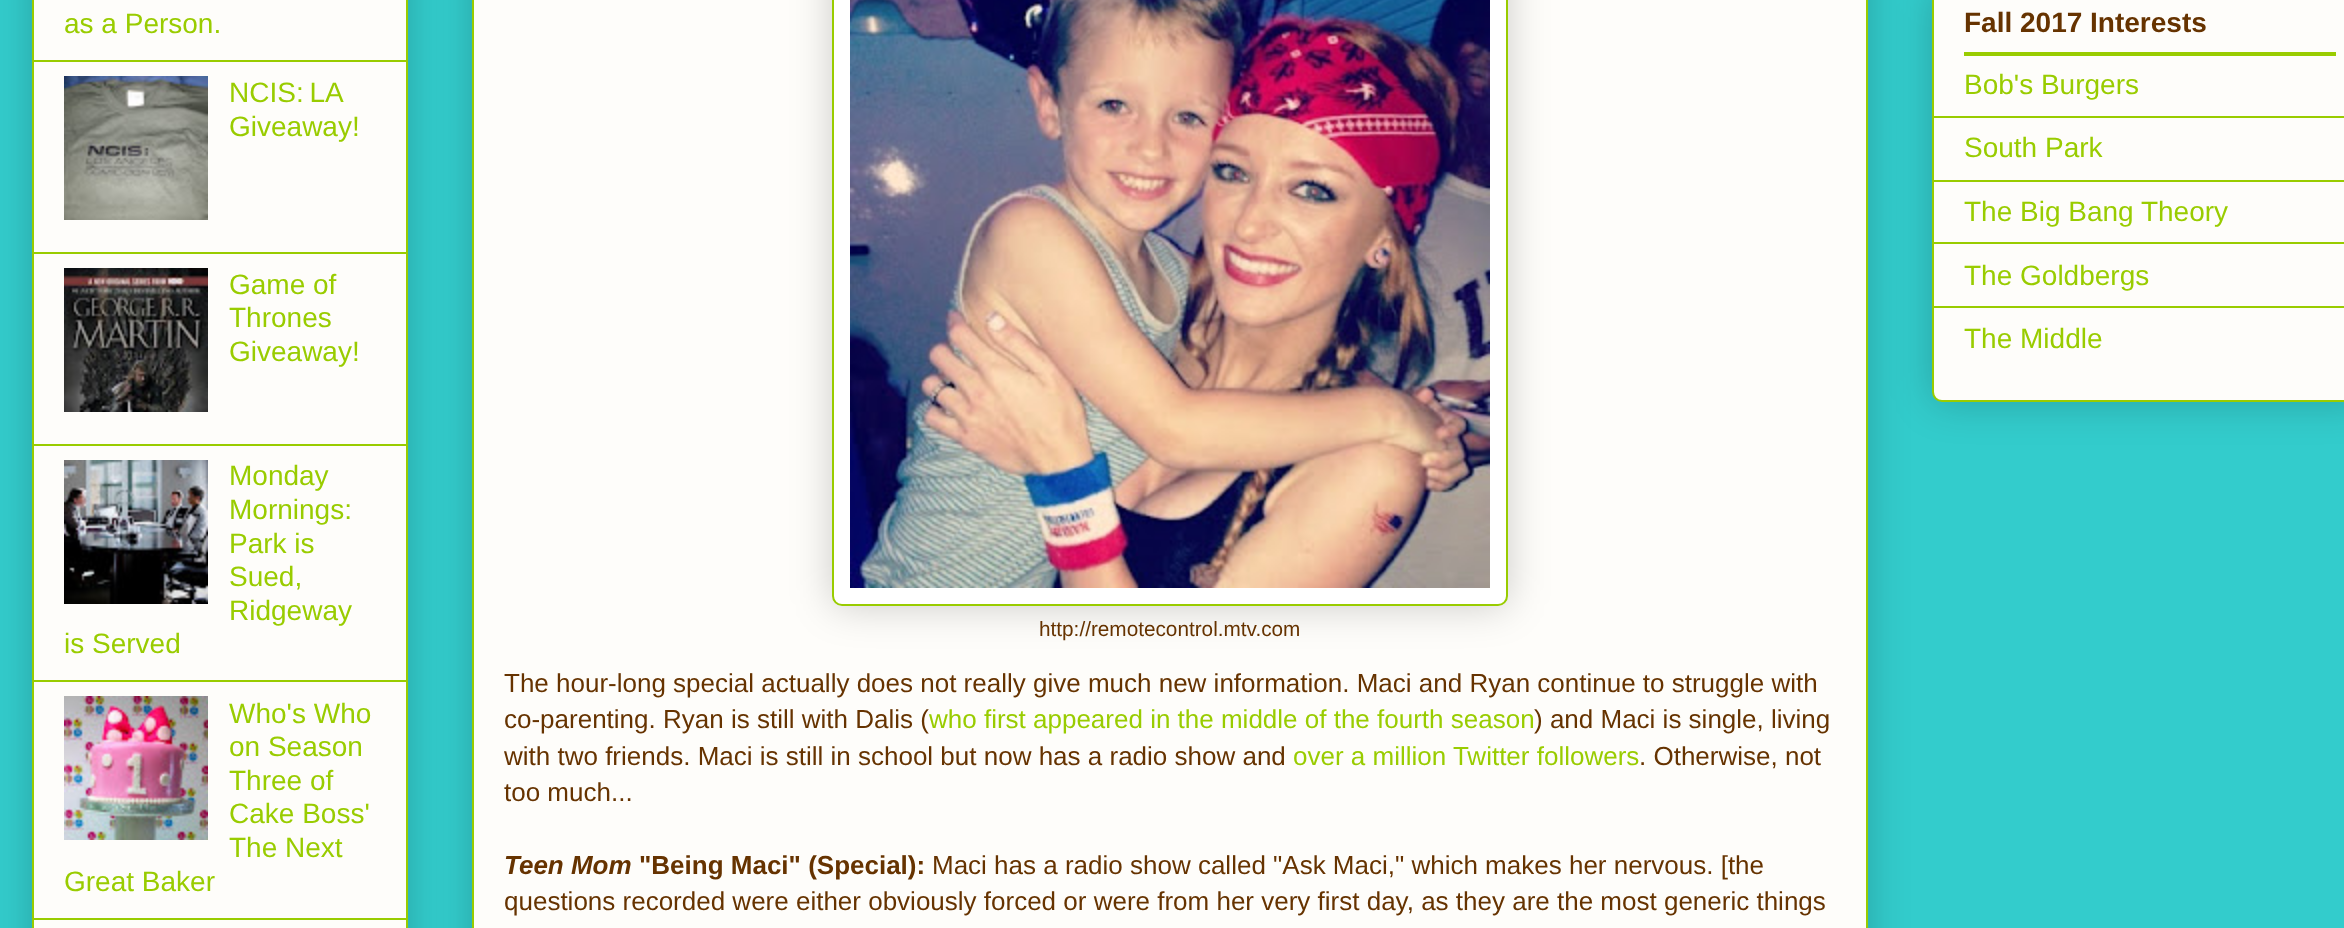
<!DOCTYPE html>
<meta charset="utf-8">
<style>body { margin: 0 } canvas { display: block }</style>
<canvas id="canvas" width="2344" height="928"></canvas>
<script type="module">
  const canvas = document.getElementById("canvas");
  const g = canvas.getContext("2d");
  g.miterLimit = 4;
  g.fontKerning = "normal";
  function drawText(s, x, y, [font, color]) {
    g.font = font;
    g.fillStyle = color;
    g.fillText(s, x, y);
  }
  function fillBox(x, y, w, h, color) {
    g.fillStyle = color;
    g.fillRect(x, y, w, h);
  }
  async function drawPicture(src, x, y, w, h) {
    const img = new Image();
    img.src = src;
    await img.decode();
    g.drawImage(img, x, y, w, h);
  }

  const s1 = ["28px Liberation Sans", "#99CC00"];
  const s2 = ["20.75px Liberation Sans", "#663300"];
  const s3 = ["26px Liberation Sans", "#663300"];
  const s4 = ["26px Liberation Sans", "#99CC00"];
  const s5 = ["italic bold 26px Liberation Sans", "#663300"];
  const s6 = ["bold 26px Liberation Sans", "#663300"];
  const s7 = ["bold 28px Liberation Sans", "#663300"];

  fillBox(0, 0, 2344, 928, "#33CCCC");
  g.fillStyle = "rgba(0, 0, 0, 0.2)";
  g.filter = "blur(20px)";
  g.beginPath();
  g.roundRect(32, -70, 376, 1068, 10);
  g.fill();
  g.filter = "none";
  g.fillStyle = "#FEFDFA";
  g.beginPath();
  g.rect(33, -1, 374, 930);
  g.fill();
  g.strokeStyle = "#99CC00";
  g.lineWidth = 2;
  g.stroke();
  fillBox(34, 60, 372, 2, "#99CC00");
  drawText("as a Person.", 64, 33, s1);
  fillBox(34, 252, 372, 2, "#99CC00");
  await drawPicture("pic1.png", 64, 76, 144, 144);
  g.wordSpacing = "-2px";
  drawText("NCIS: LA", 229, 102, s1);
  g.wordSpacing = "0px";
  drawText("Giveaway!", 229, 136, s1);
  fillBox(34, 444, 372, 2, "#99CC00");
  await drawPicture("pic2.png", 64, 268, 144, 144);
  drawText("Game of", 229, 294, s1);
  drawText("Thrones", 229, 327, s1);
  drawText("Giveaway!", 229, 361, s1);
  fillBox(34, 680, 372, 2, "#99CC00");
  await drawPicture("pic3.png", 64, 460, 144, 144);
  drawText("Monday", 229, 485, s1);
  drawText("Mornings:", 229, 519, s1);
  drawText("Park is", 229, 553, s1);
  drawText("Sued,", 229, 586, s1);
  drawText("Ridgeway", 229, 620, s1);
  drawText("is Served", 64, 653, s1);
  fillBox(34, 918, 372, 2, "#99CC00");
  await drawPicture("pic4.png", 64, 696, 144, 144);
  drawText("Who's Who", 229, 723, s1);
  drawText("on Season", 229, 756, s1);
  drawText("Three of", 229, 790, s1);
  drawText("Cake Boss'", 229, 823, s1);
  drawText("The Next", 229, 857, s1);
  drawText("Great Baker", 64, 891, s1);
  g.fillStyle = "rgba(0, 0, 0, 0.2)";
  g.filter = "blur(20px)";
  g.beginPath();
  g.roundRect(472, -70, 1396, 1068, 10);
  g.fill();
  g.filter = "none";
  g.fillStyle = "#FEFDFA";
  g.beginPath();
  g.rect(473, -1, 1394, 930);
  g.fill();
  g.stroke();
  g.fillStyle = "rgba(0, 0, 0, 0.2)";
  g.filter = "blur(20px)";
  g.beginPath();
  g.roundRect(832, -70, 676, 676, 10);
  g.fill();
  g.filter = "none";
  g.fillStyle = "#FFFFFF";
  g.beginPath();
  g.roundRect(833, -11, 674, 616, 9);
  g.fill();
  g.stroke();
  await drawPicture("pic5.png", 850, 0, 640, 588);
  drawText("http://remotecontrol.mtv.com", 1039, 636, s2);
  drawText("The hour-long special actually does not really give much new information. Maci and Ryan continue to struggle with", 504, 692, s3);
  drawText("co-parenting. Ryan is still with Dalis (", 504, 728, s3);
  drawText("who first appeared in the middle of the fourth season", 929, 728, s4);
  drawText(") and Maci is single, living", 1534, 728, s3);
  drawText("with two friends. Maci is still in school but now has a radio show and", 504, 765, s3);
  drawText("over a million Twitter followers", 1293, 765, s4);
  drawText(". Otherwise, not", 1639, 765, s3);
  drawText("too much...", 504, 801, s3);
  drawText("Teen Mom", 504, 874, s5);
  drawText("\"Being Maci\" (Special):", 639, 874, s6);
  drawText("Maci has a radio show called \"Ask Maci,\" which makes her nervous. [the", 932, 874, s3);
  drawText("questions recorded were either obviously forced or were from her very first day, as they are the most generic things", 504, 910, s3);
  g.fillStyle = "rgba(0, 0, 0, 0.2)";
  g.filter = "blur(20px)";
  g.beginPath();
  g.roundRect(1932, -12, 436, 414, 10);
  g.fill();
  g.filter = "none";
  g.fillStyle = "#FEFDFA";
  g.beginPath();
  g.roundRect(1933, -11, 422, 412, 9);
  g.fill();
  g.stroke();
  drawText("Fall 2017 Interests", 1964, 32, s7);
  fillBox(1964, 52, 372, 4, "#99CC00");
  fillBox(1934, 116, 410, 2, "#99CC00");
  drawText("Bob's Burgers", 1964, 94, s1);
  fillBox(1934, 180, 410, 2, "#99CC00");
  drawText("South Park", 1964, 157, s1);
  fillBox(1934, 242, 410, 2, "#99CC00");
  drawText("The Big Bang Theory", 1964, 221, s1);
  fillBox(1934, 306, 410, 2, "#99CC00");
  drawText("The Goldbergs", 1964, 285, s1);
  drawText("The Middle", 1964, 348, s1);
</script>
